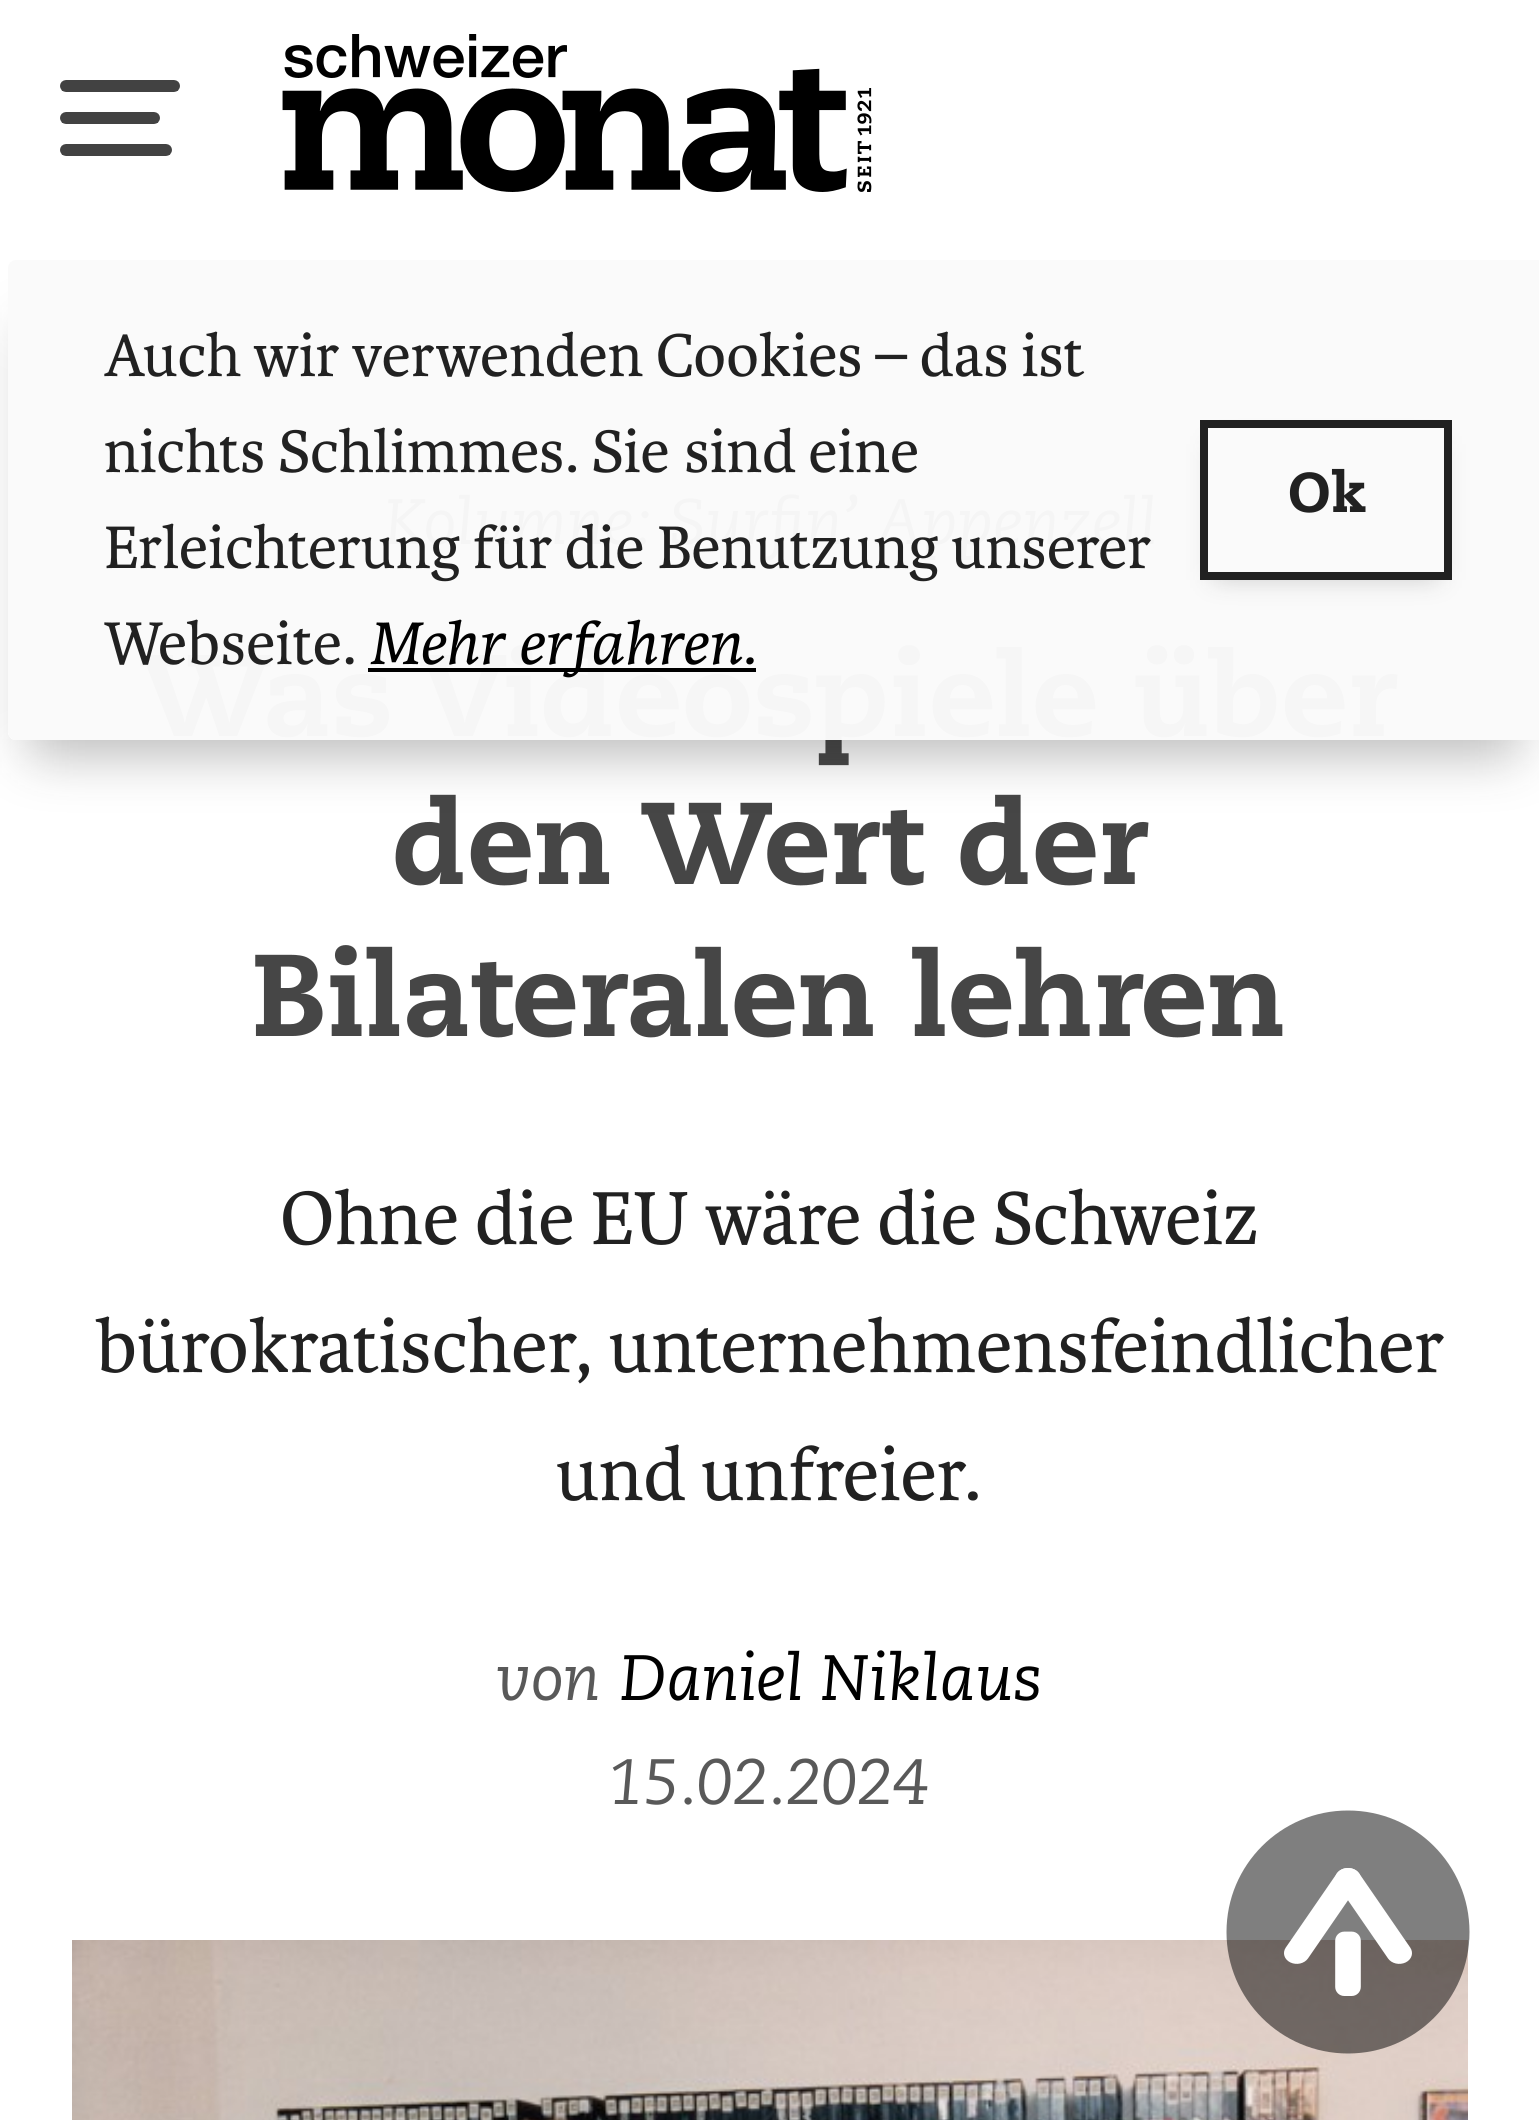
<!DOCTYPE html>
<meta charset="utf-8">
<style>body { margin: 0 } canvas { display: block }</style>
<canvas id="canvas" width="1539" height="2120"></canvas>
<script type="module">
  const canvas = document.getElementById("canvas");
  const g = canvas.getContext("2d");
  g.miterLimit = 4;
  g.fontKerning = "normal";
  function fillBox(x, y, w, h, color) {
    g.fillStyle = color;
    g.fillRect(x, y, w, h);
  }
  function fillRounded(x, y, w, h, r, color) {
    g.fillStyle = color;
    g.beginPath();
    g.roundRect(x, y, w, h, r);
    g.fill();
  }
  async function drawPicture(src, x, y, w, h) {
    const img = new Image();
    img.src = src;
    await img.decode();
    g.drawImage(img, x, y, w, h);
  }

  fillBox(0, 0, 1539, 2120, "#FFFFFF");
  fillRounded(60, 80, 120, 12, 6, "#424242");
  fillRounded(60, 112, 100, 12, 6, "#424242");
  fillRounded(60, 144, 112, 12, 6, "#424242");
  await drawPicture("pic1.png", 282, 34, 590, 158);
  await drawPicture("pic9.png", 388, 494, 766, 67);
  await drawPicture("pic10.png", 140, 645, 1258, 121);
  await drawPicture("pic11.png", 395, 794, 754, 92);
  g.save();
  g.beginPath();
  g.moveTo(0, 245);
  g.lineTo(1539, 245);
  g.lineTo(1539, 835);
  g.lineTo(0, 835);
  g.closePath();
  g.moveTo(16, 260);
  g.lineTo(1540, 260);
  g.bezierCurveTo(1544.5, 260, 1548, 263.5, 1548, 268);
  g.lineTo(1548, 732);
  g.bezierCurveTo(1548, 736.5, 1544.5, 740, 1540, 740);
  g.lineTo(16, 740);
  g.bezierCurveTo(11.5, 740, 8, 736.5, 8, 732);
  g.lineTo(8, 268);
  g.bezierCurveTo(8, 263.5, 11.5, 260, 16, 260);
  g.closePath();
  g.clip("evenodd");
  g.fillStyle = "rgba(33, 33, 33, 0.3)";
  g.filter = "blur(26px)";
  g.beginPath();
  g.rect(28, 324, 1492, 432);
  g.fill();
  g.filter = "none";
  g.restore();
  fillRounded(8, 260, 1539, 480, 8, "rgba(250, 250, 250, 0.98)");
  await drawPicture("pic2.png", 104, 331, 981, 47);
  await drawPicture("pic3.png", 105, 427, 563, 46);
  await drawPicture("pic4.png", 686, 427, 231, 46);
  await drawPicture("pic5.png", 106, 523, 1045, 59);
  await drawPicture("pic6.png", 104, 619, 250, 46);
  fillBox(368, 668, 388, 4, "#000000");
  await drawPicture("pic7.png", 370, 619, 384, 59);
  g.save();
  g.beginPath();
  g.moveTo(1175, 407);
  g.lineTo(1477, 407);
  g.lineTo(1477, 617);
  g.lineTo(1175, 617);
  g.closePath();
  g.moveTo(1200, 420);
  g.lineTo(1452, 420);
  g.lineTo(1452, 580);
  g.lineTo(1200, 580);
  g.closePath();
  g.clip("evenodd");
  g.fillStyle = "rgba(33, 33, 33, 0.2)";
  g.filter = "blur(12px)";
  g.beginPath();
  g.rect(1212, 444, 228, 136);
  g.fill();
  g.filter = "none";
  g.restore();
  g.strokeStyle = "#212121";
  g.lineWidth = 8;
  g.strokeRect(1204, 424, 244, 152);
  await drawPicture("pic8.png", 1289, 468, 77, 45);
  await drawPicture("pic12.png", 255, 945, 1028, 93);
  await drawPicture("pic13.png", 283, 1188, 973, 58);
  await drawPicture("pic14.png", 95, 1316, 1349, 68);
  await drawPicture("pic15.png", 557, 1444, 421, 57);
  await drawPicture("pic16.png", 497, 1666, 101, 35);
  await drawPicture("pic17.png", 621, 1650, 418, 51);
  await drawPicture("pic18.png", 612, 1758, 316, 47);
  await drawPicture("pic19.png", 72, 1940, 1396, 180);
  await drawPicture("pic20.png", 1226, 1810, 244, 244);
</script>
